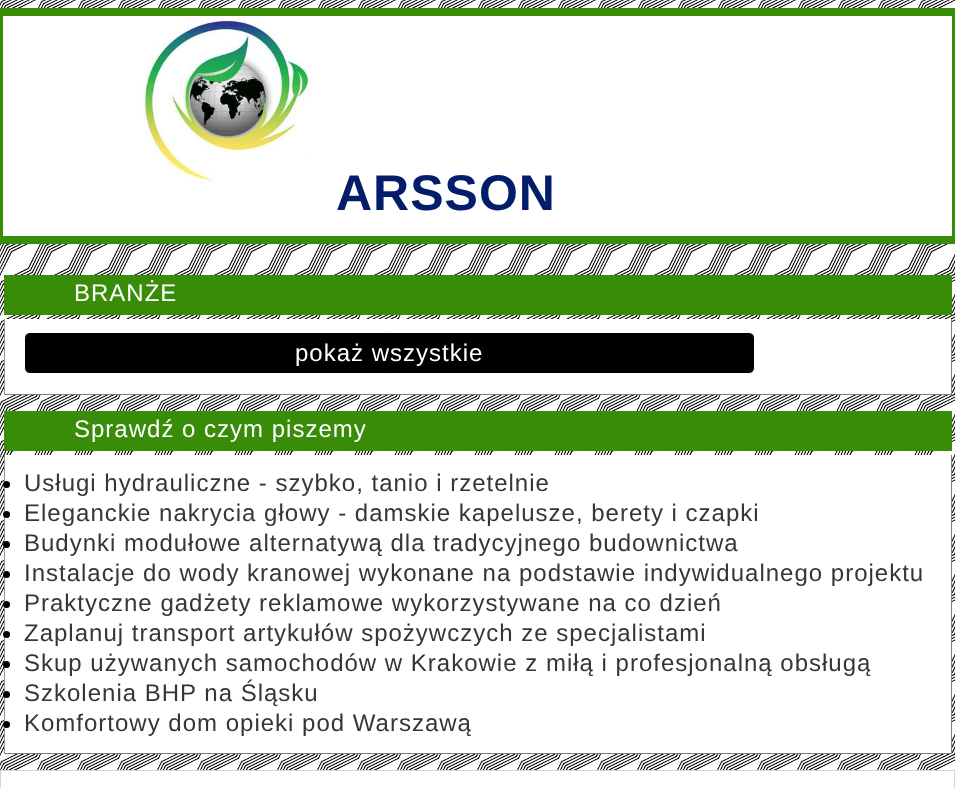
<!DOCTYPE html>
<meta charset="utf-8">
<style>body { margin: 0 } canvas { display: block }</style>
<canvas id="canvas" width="955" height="788"></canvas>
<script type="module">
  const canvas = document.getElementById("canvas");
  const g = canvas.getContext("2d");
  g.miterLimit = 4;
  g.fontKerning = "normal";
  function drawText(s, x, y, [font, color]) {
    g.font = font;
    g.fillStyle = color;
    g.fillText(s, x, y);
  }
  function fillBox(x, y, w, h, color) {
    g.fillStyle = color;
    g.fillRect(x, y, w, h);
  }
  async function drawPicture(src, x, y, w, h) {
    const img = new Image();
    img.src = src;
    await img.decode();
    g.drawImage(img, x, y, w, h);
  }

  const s1 = ["bold 50px Liberation Sans", "#041D6A"];
  const s2 = ["24px Liberation Sans", "#FFFFFF"];
  const s3 = ["24px Liberation Sans", "#373535"];

  fillBox(0, 0, 955, 788, "#FFFFFF");
  await drawPicture("pic1.png", 0, 0, 955, 770);
  fillBox(0, 8, 955, 236, "#388C08");
  fillBox(3, 16, 949, 220, "#FFFFFF");
  await drawPicture("pic2.png", 142, 19, 169, 165);
  g.letterSpacing = "1px";
  drawText("ARSSON", 336, 210, s1);
  fillBox(4, 275, 948, 40, "#388C08");
  drawText("BRANŻE", 74, 301, s2);
  fillBox(5, 319, 946, 75, "#FFFFFF");
  fillBox(951, 319, 1, 76, "#827E7E");
  fillBox(4, 394, 948, 1, "#807A7A");
  fillBox(4, 319, 1, 76, "#979393");
  g.fillStyle = "#000000";
  g.beginPath();
  g.roundRect(24.5, 332.5, 730, 41, 5.5);
  g.fill();
  g.strokeStyle = "#FFFFFF";
  g.stroke();
  drawText("pokaż wszystkie", 295, 361, s2);
  fillBox(4, 411, 948, 40, "#388C08");
  drawText("Sprawdź o czym piszemy", 74, 437, s2);
  fillBox(5, 455, 946, 298, "#FFFFFF");
  fillBox(951, 455, 1, 299, "#827E7E");
  fillBox(4, 753, 948, 1, "#807A7A");
  fillBox(4, 455, 1, 299, "#979393");
  g.fillStyle = "#000000";
  g.beginPath();
  g.arc(6.5, 484.5, 3.5, 0, Math.PI * 2);
  g.fill();
  drawText("Usługi hydrauliczne - szybko, tanio i rzetelnie", 24, 491, s3);
  g.fillStyle = "#000000";
  g.beginPath();
  g.arc(6.5, 514.5, 3.5, 0, Math.PI * 2);
  g.fill();
  drawText("Eleganckie nakrycia głowy - damskie kapelusze, berety i czapki", 24, 521, s3);
  g.fillStyle = "#000000";
  g.beginPath();
  g.arc(6.5, 544.5, 3.5, 0, Math.PI * 2);
  g.fill();
  drawText("Budynki modułowe alternatywą dla tradycyjnego budownictwa", 24, 551, s3);
  g.fillStyle = "#000000";
  g.beginPath();
  g.arc(6.5, 574.5, 3.5, 0, Math.PI * 2);
  g.fill();
  drawText("Instalacje do wody kranowej wykonane na podstawie indywidualnego projektu", 24, 581, s3);
  g.fillStyle = "#000000";
  g.beginPath();
  g.arc(6.5, 604.5, 3.5, 0, Math.PI * 2);
  g.fill();
  drawText("Praktyczne gadżety reklamowe wykorzystywane na co dzień", 24, 611, s3);
  g.fillStyle = "#000000";
  g.beginPath();
  g.arc(6.5, 634.5, 3.5, 0, Math.PI * 2);
  g.fill();
  drawText("Zaplanuj transport artykułów spożywczych ze specjalistami", 24, 641, s3);
  g.fillStyle = "#000000";
  g.beginPath();
  g.arc(6.5, 664.5, 3.5, 0, Math.PI * 2);
  g.fill();
  drawText("Skup używanych samochodów w Krakowie z miłą i profesjonalną obsługą", 24, 671, s3);
  g.fillStyle = "#000000";
  g.beginPath();
  g.arc(6.5, 694.5, 3.5, 0, Math.PI * 2);
  g.fill();
  drawText("Szkolenia BHP na Śląsku", 24, 701, s3);
  g.fillStyle = "#000000";
  g.beginPath();
  g.arc(6.5, 724.5, 3.5, 0, Math.PI * 2);
  g.fill();
  drawText("Komfortowy dom opieki pod Warszawą", 24, 731, s3);
  g.fillStyle = "#D5D5D5";
  g.beginPath();
  g.moveTo(1, 771);
  g.lineTo(954, 771);
  g.lineTo(954, 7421);
  g.lineTo(955, 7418);
  g.lineTo(955, 770);
  g.lineTo(0, 770);
  g.lineTo(0, 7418);
  g.lineTo(1, 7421);
  g.closePath();
  g.moveTo(950, 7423);
  g.lineTo(953, 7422);
  g.lineTo(2, 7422);
  g.lineTo(5, 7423);
  g.closePath();
  g.fill("evenodd");
</script>
